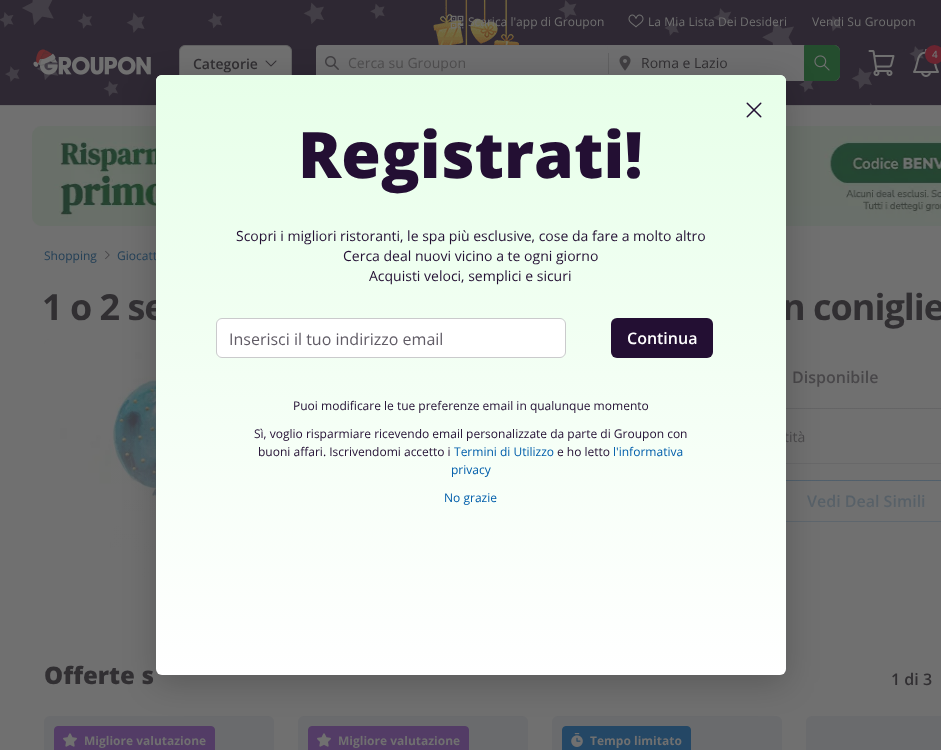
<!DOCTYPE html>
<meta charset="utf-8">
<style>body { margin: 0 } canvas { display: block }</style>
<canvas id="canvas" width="941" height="750"></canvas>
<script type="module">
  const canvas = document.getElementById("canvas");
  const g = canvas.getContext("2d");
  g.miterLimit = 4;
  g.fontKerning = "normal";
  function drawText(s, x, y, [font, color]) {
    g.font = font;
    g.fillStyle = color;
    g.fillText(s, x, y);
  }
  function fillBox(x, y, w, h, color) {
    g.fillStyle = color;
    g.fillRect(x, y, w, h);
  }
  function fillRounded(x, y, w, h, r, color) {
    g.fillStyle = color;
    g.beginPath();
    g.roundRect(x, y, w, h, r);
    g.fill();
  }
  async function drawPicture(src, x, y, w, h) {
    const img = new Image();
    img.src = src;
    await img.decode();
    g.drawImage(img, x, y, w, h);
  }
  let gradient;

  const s1 = ["12px Open Sans", "#707070"];
  const s2 = ["600 10px Open Sans", "#707070"];
  const s3 = ["600 14px Open Sans", "#312F32"];
  const s4 = ["14px Open Sans", "#4F4E4F"];
  const s5 = ["14px Open Sans", "#312F32"];
  const s6 = ["600 16px Open Sans", "#413F42"];
  const s7 = ["600 16px Open Sans", "#244057"];
  const s8 = ["12px Open Sans", "#244057"];
  const s9 = ["bold 36px Open Sans", "#312F32"];
  const s10 = ["800 64px Open Sans", "#230F33"];
  const s11 = ["14px Open Sans", "#230F33"];
  const s12 = ["16px Open Sans", "#615C66"];
  const s13 = ["600 16px Open Sans", "#FFFFFF"];
  const s14 = ["12px Open Sans", "#230F33"];
  const s15 = ["12px Open Sans", "#005EAB"];
  const s16 = ["800 24px Open Sans", "#312F32"];
  const s17 = ["600 16px Open Sans", "#312F32"];
  const s18 = ["bold 12px Open Sans", "#707070"];

  fillBox(0, 0, 941, 750, "#707070");
  await drawPicture("pic1.png", 0, 0, 941, 105);
  await drawPicture("pic2.png", 450, 15, 14, 14);
  drawText("Scarica l'app di Groupon", 468, 26, s1);
  await drawPicture("pic3.png", 628, 14, 16, 14);
  g.letterSpacing = "0.1px";
  drawText("La Mia Lista Dei Desideri", 648, 26, s1);
  drawText("Vendi Su Groupon", 812, 26, s1);
  await drawPicture("pic4.png", 33, 49, 118, 26);
  await drawPicture("pic5.png", 868, 50, 27, 26);
  await drawPicture("pic6.png", 913, 49, 26, 28);
  g.fillStyle = "#6A2430";
  g.beginPath();
  g.arc(934.5, 54.5, 9.5, 0, Math.PI * 2);
  g.fill();
  g.letterSpacing = "0px";
  drawText("4", 932, 58, s2);
  g.beginPath();
  g.roundRect(179.5, 45.5, 112, 35, 5.5);
  g.fill();
  g.strokeStyle = "#606061";
  g.stroke();
  drawText("Categorie", 193, 69, s3);
  await drawPicture("pic7.png", 265, 60, 12, 7);
  fillRounded(316, 45, 524, 36, 6, "#6E6E6F");
  fillRounded(316, 45, 292, 35, 4, "#6E6E6F");
  await drawPicture("pic8.png", 325, 56, 14, 14);
  drawText("Cerca su Groupon", 348, 68, s4);
  fillBox(608, 53, 1, 21, "#606061");
  await drawPicture("pic9.png", 619, 55, 12, 16);
  drawText("Roma e Lazio", 641, 68, s5);
  g.fillStyle = "#244D2E";
  g.beginPath();
  g.roundRect(804.5, 45.5, 35, 35, [0, 5.5, 5.5, 0]);
  g.fill();
  g.strokeStyle = "#244D2E";
  g.stroke();
  await drawPicture("pic10.png", 814, 55, 16, 16);
  fillBox(0, 105, 941, 1, "#686869");
  await drawPicture("pic11.png", 32, 126, 909, 100);
  await drawPicture("pic13.png", 105, 250, 5, 10);
  await drawPicture("pic14.png", 44, 339, 112, 239);
  g.strokeStyle = "#606061";
  g.strokeRect(697.5, 408.5, 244, 55);
  g.strokeStyle = "#244765";
  g.strokeRect(697.5, 480.5, 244, 41);
  drawText("Disponibile", 792, 383, s6);
  drawText("tità", 784, 442, s5);
  drawText("Vedi Deal Simili", 807, 507, s7);
  gradient = g.createLinearGradient(540, 339, 540, 639);
  gradient.addColorStop(0, "rgba(112, 112, 112, 0)");
  gradient.addColorStop(0.8, "#707070");
  g.fillStyle = gradient;
  g.fillRect(111, 371, 830, 207);
  fillRounded(44, 716, 230, 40, 6, "#6A6B6D");
  g.fillStyle = "#533C66";
  g.beginPath();
  g.roundRect(54.5, 726.5, 160, 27, 3.5);
  g.fill();
  g.strokeStyle = "#533C66";
  g.stroke();
  fillRounded(298, 716, 230, 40, 6, "#6A6B6D");
  g.fillStyle = "#533C66";
  g.beginPath();
  g.roundRect(308.5, 726.5, 160, 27, 3.5);
  g.fill();
  g.stroke();
  fillRounded(552, 716, 230, 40, 6, "#6A6B6D");
  g.fillStyle = "#244765";
  g.beginPath();
  g.roundRect(562.5, 726.5, 128, 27, 3.5);
  g.fill();
  g.strokeStyle = "#244765";
  g.stroke();
  fillRounded(806, 716, 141, 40, 6, "#6A6B6D");
  g.fillStyle = "rgba(0, 0, 0, 0.2)";
  g.filter = "blur(16px)";
  g.beginPath();
  g.roundRect(156, 83, 630, 600, 6);
  g.fill();
  g.filter = "none";
  drawText("Giocatt", 117, 260, s8);
  g.letterSpacing = "-1px";
  drawText("1 o 2 se", 42, 320, s9);
  drawText("n coniglie", 782, 320, s9);
  fillRounded(156, 75, 630, 600, 6, "#FFFFFF");
  gradient = g.createLinearGradient(471, 75, 471, 675);
  gradient.addColorStop(0, "#E7FFE9");
  gradient.addColorStop(1, "rgba(231, 255, 233, 0)");
  gradient.addColorStop(1, "rgba(255, 255, 255, 0)");
  gradient.addColorStop(1, "#FFFFFF");
  g.fillStyle = gradient;
  g.beginPath();
  g.roundRect(156, 75, 630, 600, 6);
  g.fill();
  await drawPicture("pic12.png", 746, 102, 16, 16);
  g.letterSpacing = "0px";
  drawText("Registrati!", 298, 178, s10);
  drawText("Scopri i migliori ristoranti, le spa più esclusive, cose da fare a molto altro", 236, 241, s11);
  drawText("Cerca deal nuovi vicino a te ogni giorno", 343, 261, s11);
  drawText("Acquisti veloci, semplici e sicuri", 369, 281, s11);
  g.fillStyle = "#FFFFFF";
  g.beginPath();
  g.roundRect(216.5, 318.5, 349, 39, 5.5);
  g.fill();
  g.strokeStyle = "#CACACC";
  g.stroke();
  drawText("Inserisci il tuo indirizzo email", 229, 345, s12);
  fillRounded(611, 318, 102, 40, 6, "#230F33");
  drawText("Continua", 627, 344, s13);
  drawText("Puoi modificare le tue preferenze email in qualunque momento", 293, 410, s14);
  drawText("Sì, voglio risparmiare ricevendo email personalizzate da parte di Groupon con", 254, 438, s14);
  drawText("buoni affari. Iscrivendomi accetto i", 258, 456, s14);
  drawText("Termini di Utilizzo", 454, 456, s15);
  drawText("e ho letto", 557, 456, s14);
  drawText("l'informativa", 613, 456, s15);
  drawText("privacy", 451, 474, s15);
  drawText("No grazie", 444, 502, s15);
  drawText("Shopping", 44, 260, s8);
  drawText("Offerte s", 44, 684, s16);
  drawText("1 di 3", 891, 685, s17);
  await drawPicture("pic15.png", 63, 733, 14, 14);
  drawText("Migliore valutazione", 84, 745, s18);
  await drawPicture("pic15.png", 317, 733, 14, 14);
  drawText("Migliore valutazione", 338, 745, s18);
  await drawPicture("pic16.png", 571, 733, 12, 14);
  drawText("Tempo limitato", 590, 745, s18);
</script>
